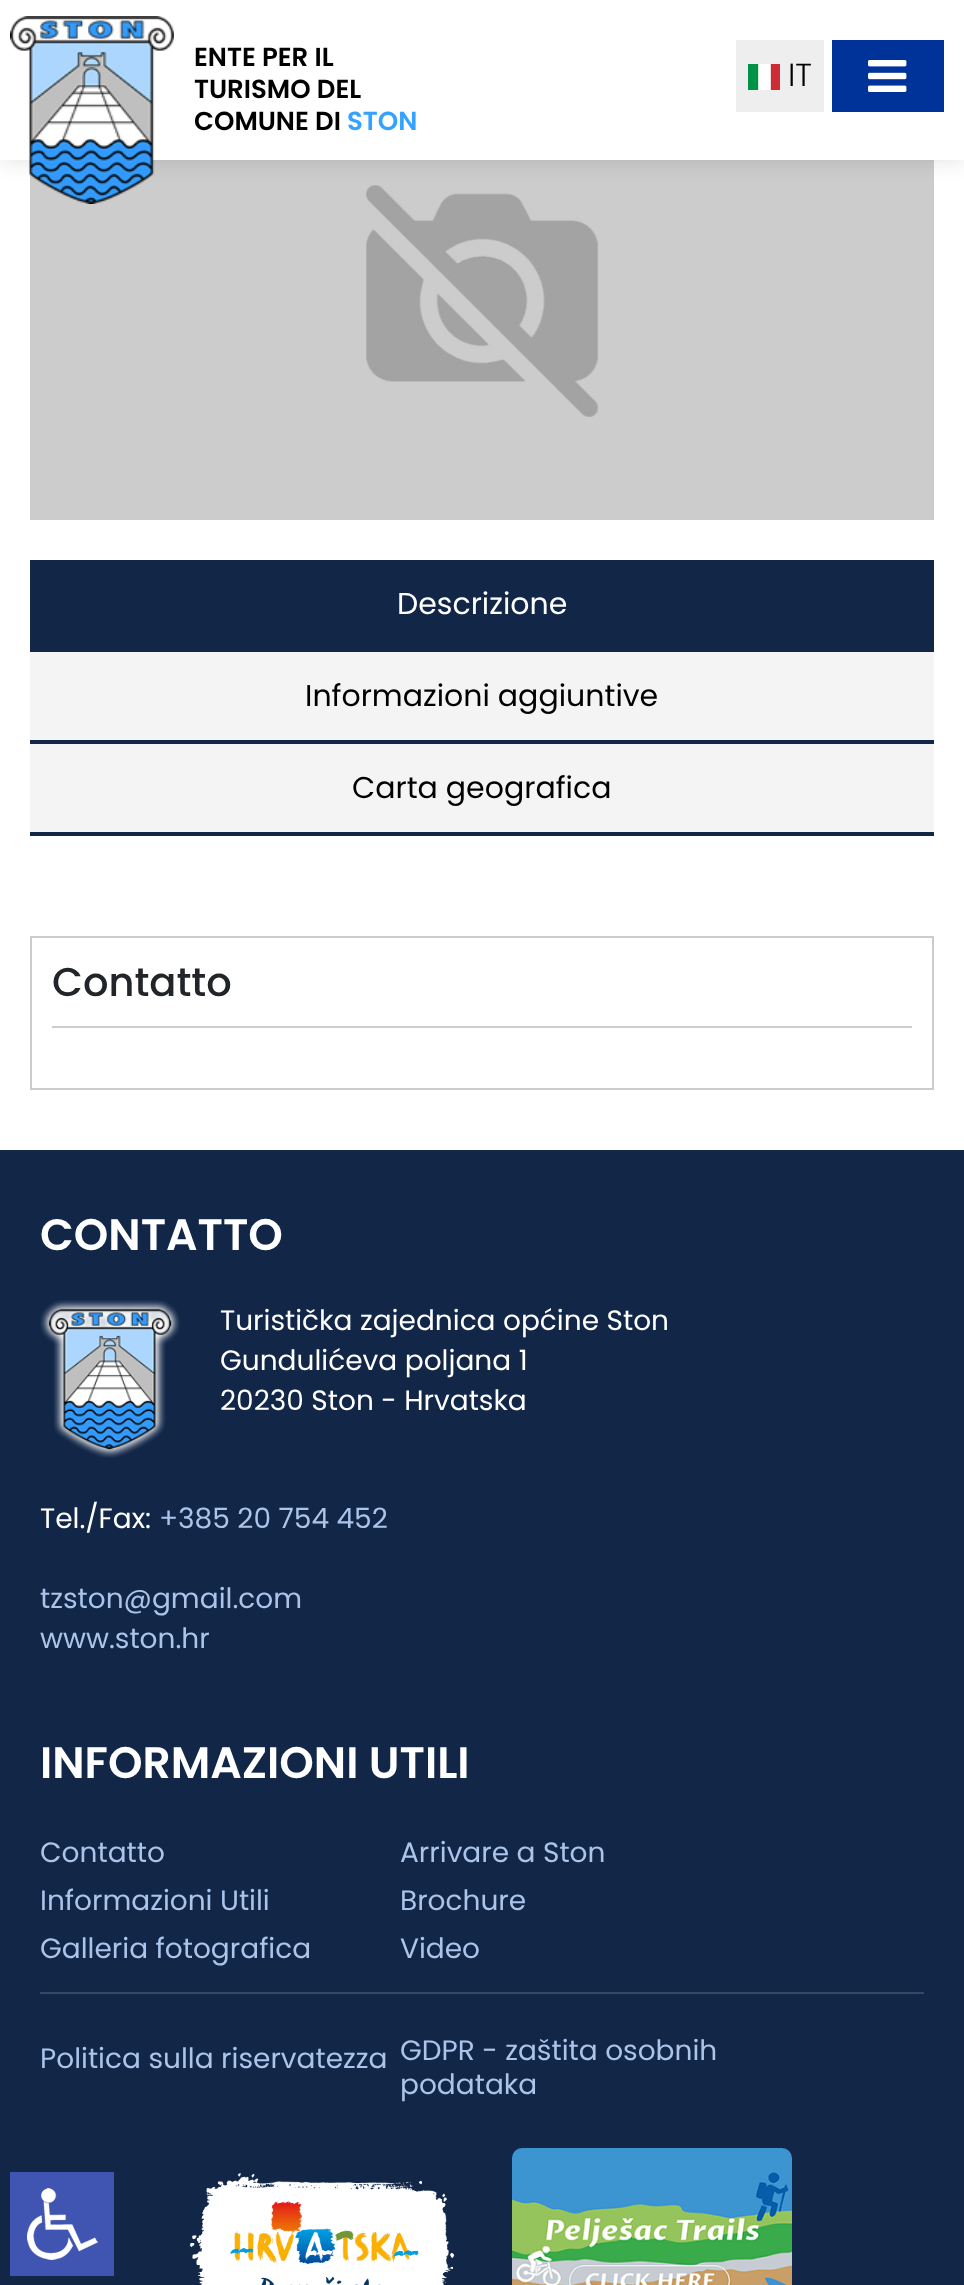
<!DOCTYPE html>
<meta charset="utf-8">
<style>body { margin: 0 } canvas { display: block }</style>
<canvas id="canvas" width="964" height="2285"></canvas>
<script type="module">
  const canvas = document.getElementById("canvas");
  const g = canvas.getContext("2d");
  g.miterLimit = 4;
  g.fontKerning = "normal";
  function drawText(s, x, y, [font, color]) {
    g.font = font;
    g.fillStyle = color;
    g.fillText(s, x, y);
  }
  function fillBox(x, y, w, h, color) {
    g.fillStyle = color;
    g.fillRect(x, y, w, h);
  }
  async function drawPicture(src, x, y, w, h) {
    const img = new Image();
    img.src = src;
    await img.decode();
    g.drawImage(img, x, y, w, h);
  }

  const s1 = ["600 26px Poppins", "#000000"];
  const s2 = ["600 26px Poppins", "#35A2FF"];
  const s3 = ["300 32px Poppins", "#000000"];
  const s4 = ["30px Poppins", "#FFFFFF"];
  const s5 = ["30px Poppins", "#000000"];
  const s6 = ["500 40px Poppins", "#212529"];
  const s7 = ["600 44px Poppins", "#FFFFFF"];
  const s8 = ["28px Poppins", "#FFFFFF"];
  const s9 = ["28px Poppins", "#ABC4EA"];

  fillBox(0, 0, 964, 2285, "#122748");
  fillBox(0, 160, 964, 990, "#FFFFFF");
  fillBox(30, 160, 904, 360, "#CCCCCC");
  await drawPicture("pic4.png", 366, 185, 233, 232);
  g.fillStyle = "rgba(0, 0, 0, 0.1)";
  g.filter = "blur(10px)";
  g.beginPath();
  g.rect(0, 2, 964, 160);
  g.fill();
  g.filter = "none";
  fillBox(0, 0, 964, 160, "#FFFFFF");
  await drawPicture("pic1.png", 10, 16, 164, 188);
  drawText("ENTE PER IL", 194, 66, s1);
  drawText("TURISMO DEL", 194, 98, s1);
  drawText("COMUNE DI", 194, 130, s1);
  drawText("STON", 347, 130, s2);
  fillBox(736, 40, 88, 72, "#EEEEEE");
  await drawPicture("pic2.png", 748, 64, 32, 26);
  drawText("IT", 788, 86, s3);
  fillBox(832, 40, 112, 72, "#003399");
  await drawPicture("pic3.png", 868, 60, 39, 32);
  fillBox(30, 560, 904, 92, "#122748");
  drawText("Descrizione", 397, 614, s4);
  fillBox(30, 740, 904, 4, "#122748");
  fillBox(30, 652, 904, 88, "#F4F4F4");
  drawText("Informazioni aggiuntive", 305, 706, s5);
  fillBox(30, 832, 904, 4, "#122748");
  fillBox(30, 744, 904, 88, "#F4F4F4");
  drawText("Carta geografica", 352, 798, s5);
  g.strokeStyle = "#CCCCCC";
  g.lineWidth = 2;
  g.strokeRect(31, 937, 902, 152);
  drawText("Contatto", 52, 996, s6);
  fillBox(52, 1026, 860, 2, "#CCCCCC");
  drawText("CONTATTO", 40, 1250, s7);
  await drawPicture("pic5.png", 40, 1300, 140, 158);
  drawText("Turistička zajednica općine Ston", 220, 1330, s8);
  drawText("Gundulićeva poljana 1", 220, 1370, s8);
  drawText("20230 Ston - Hrvatska", 220, 1410, s8);
  drawText("Tel./Fax:", 40, 1528, s8);
  drawText("+385 20 754 452", 159, 1528, s9);
  drawText("tzston@gmail.com", 40, 1608, s9);
  drawText("www.ston.hr", 40, 1648, s9);
  drawText("INFORMAZIONI UTILI", 40, 1778, s7);
  drawText("Contatto", 40, 1862, s9);
  drawText("Arrivare a Ston", 400, 1862, s9);
  drawText("Informazioni Utili", 40, 1910, s9);
  drawText("Brochure", 400, 1910, s9);
  drawText("Galleria fotografica", 40, 1958, s9);
  drawText("Video", 400, 1958, s9);
  fillBox(40, 1992, 884, 2, "#354763");
  drawText("Politica sulla riservatezza", 40, 2068, s9);
  drawText("GDPR - zaštita osobnih", 400, 2060, s9);
  drawText("podataka", 400, 2094, s9);
  await drawPicture("pic6.png", 189, 2173, 266, 112);
  await drawPicture("pic7.png", 512, 2148, 280, 137);
  await drawPicture("pic8.png", 10, 2172, 104, 104);
</script>
